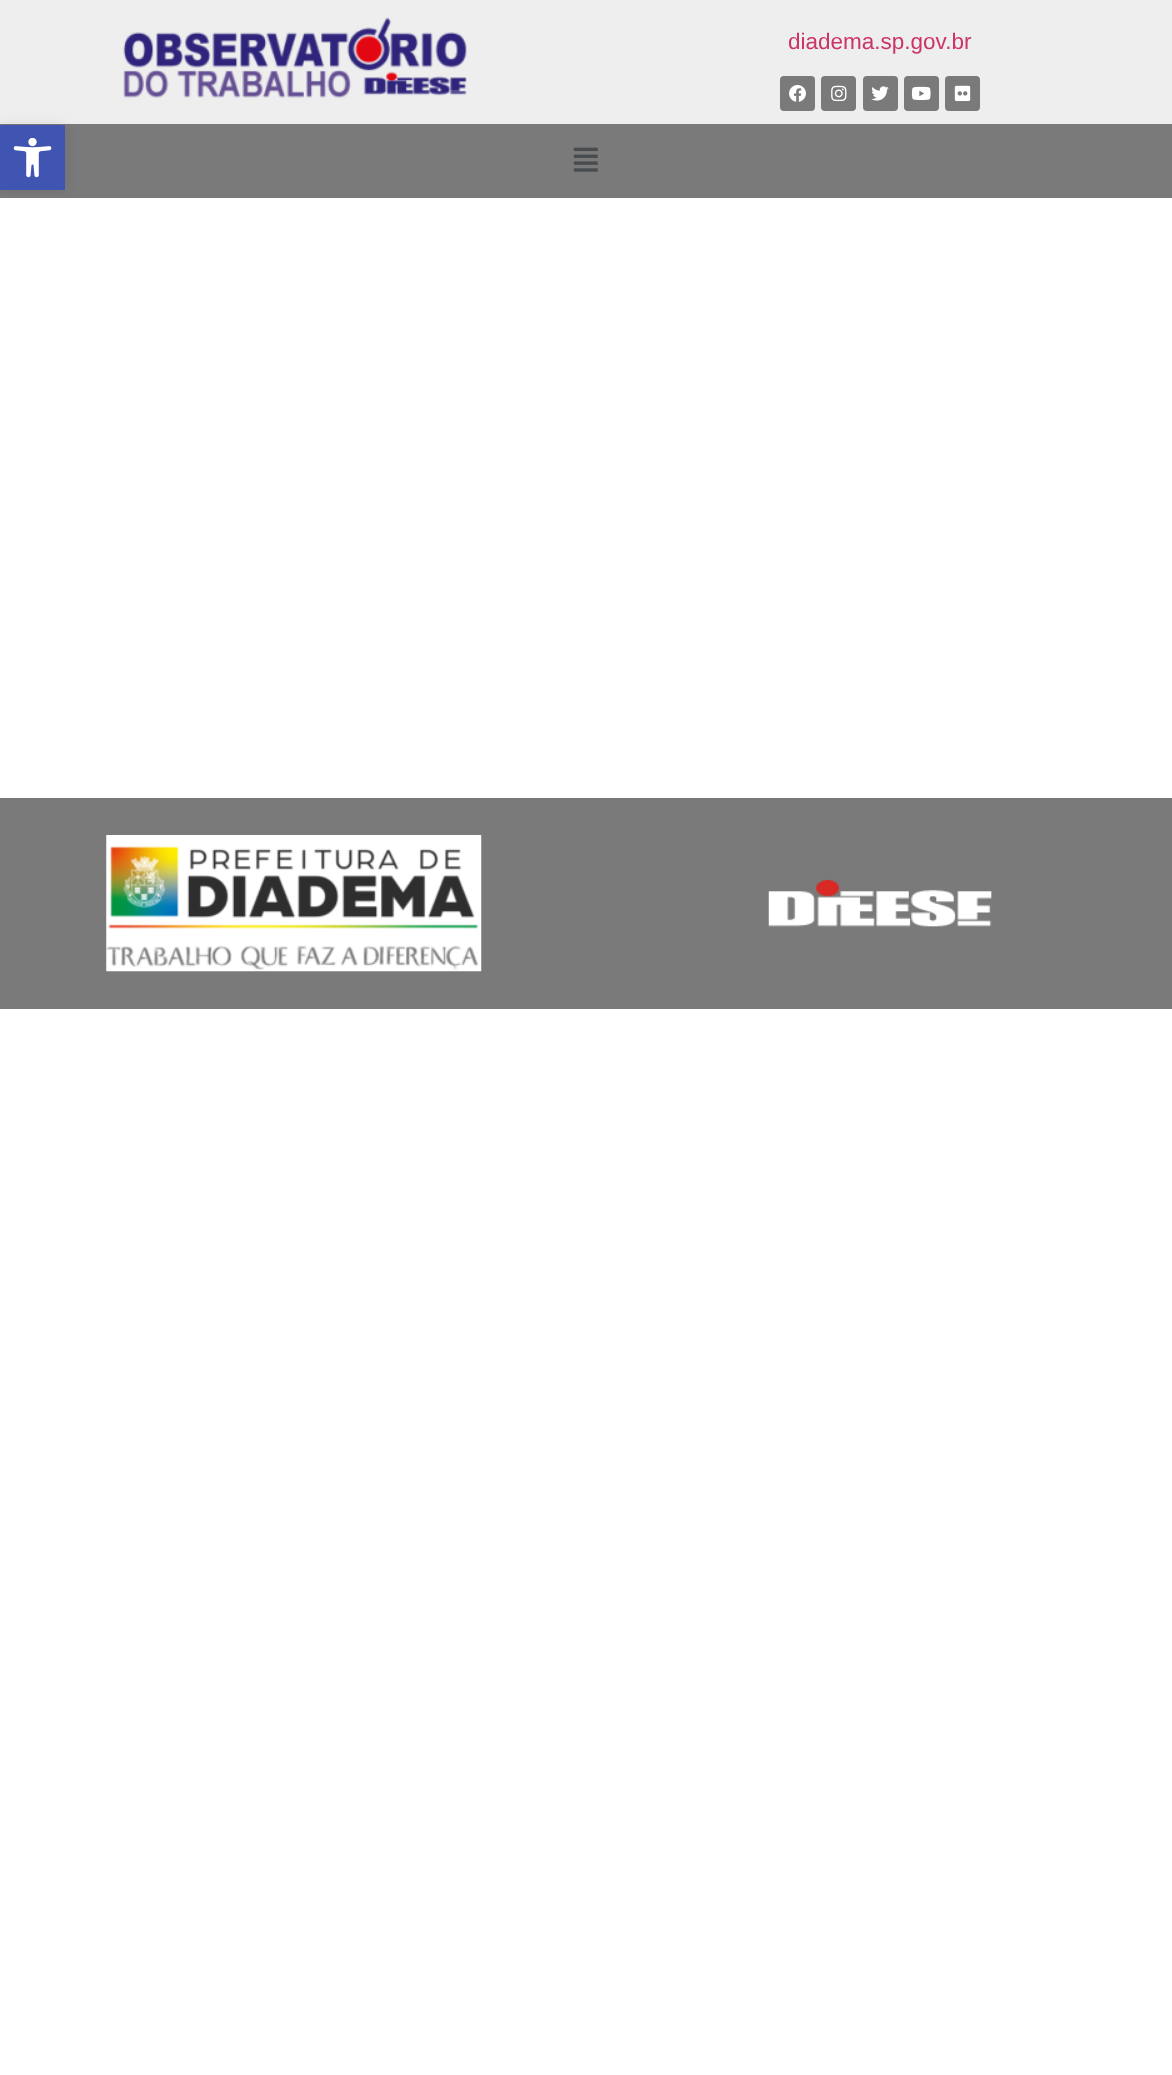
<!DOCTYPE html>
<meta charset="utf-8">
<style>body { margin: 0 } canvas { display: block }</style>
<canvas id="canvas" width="1172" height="2075"></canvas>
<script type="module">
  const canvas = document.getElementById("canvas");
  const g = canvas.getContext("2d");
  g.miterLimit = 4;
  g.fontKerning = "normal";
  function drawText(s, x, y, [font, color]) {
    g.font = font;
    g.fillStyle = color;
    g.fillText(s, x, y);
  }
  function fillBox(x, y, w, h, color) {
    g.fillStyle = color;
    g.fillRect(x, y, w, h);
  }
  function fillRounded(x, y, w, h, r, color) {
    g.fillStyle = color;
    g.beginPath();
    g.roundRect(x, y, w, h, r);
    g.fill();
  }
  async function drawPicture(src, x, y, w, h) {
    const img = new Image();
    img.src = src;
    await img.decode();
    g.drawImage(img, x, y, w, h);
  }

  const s1 = ["22.5px Liberation Sans", "#CC3366"];

  fillBox(0, 0, 1172, 2075, "#FFFFFF");
  fillBox(0, 0, 1172, 124, "#EEEEEE");
  await drawPicture("pic1.png", 123, 17, 344, 81);
  drawText("diadema.sp.gov.br", 788, 49, s1);
  fillRounded(780, 76, 35, 35, 4, "#7A7A7A");
  await drawPicture("pic2.png", 789, 85, 17, 17);
  fillRounded(821, 76, 35, 35, 4, "#7A7A7A");
  await drawPicture("pic3.png", 831, 85, 16, 17);
  fillRounded(863, 76, 35, 35, 4, "#7A7A7A");
  await drawPicture("pic4.png", 871, 86, 18, 15);
  fillRounded(904, 76, 35, 35, 4, "#7A7A7A");
  await drawPicture("pic5.png", 911, 86, 20, 14);
  fillRounded(945, 76, 35, 35, 4, "#7A7A7A");
  await drawPicture("pic6.png", 954, 85, 17, 17);
  fillBox(0, 124, 1172, 74, "#7A7A7A");
  await drawPicture("pic7.png", 573, 147, 25, 25);
  fillBox(0, 798, 1172, 211, "#7A7A7A");
  await drawPicture("pic8.png", 106, 835, 376, 137);
  await drawPicture("pic9.png", 768, 879, 224, 48);
  g.fillStyle = "rgba(0, 0, 0, 0.1)";
  g.filter = "blur(6px)";
  g.beginPath();
  g.rect(0, 125, 65, 65);
  g.fill();
  g.filter = "none";
  fillBox(0, 125, 65, 65, "#4054B2");
  await drawPicture("pic10.png", 13, 138, 39, 40);
</script>
